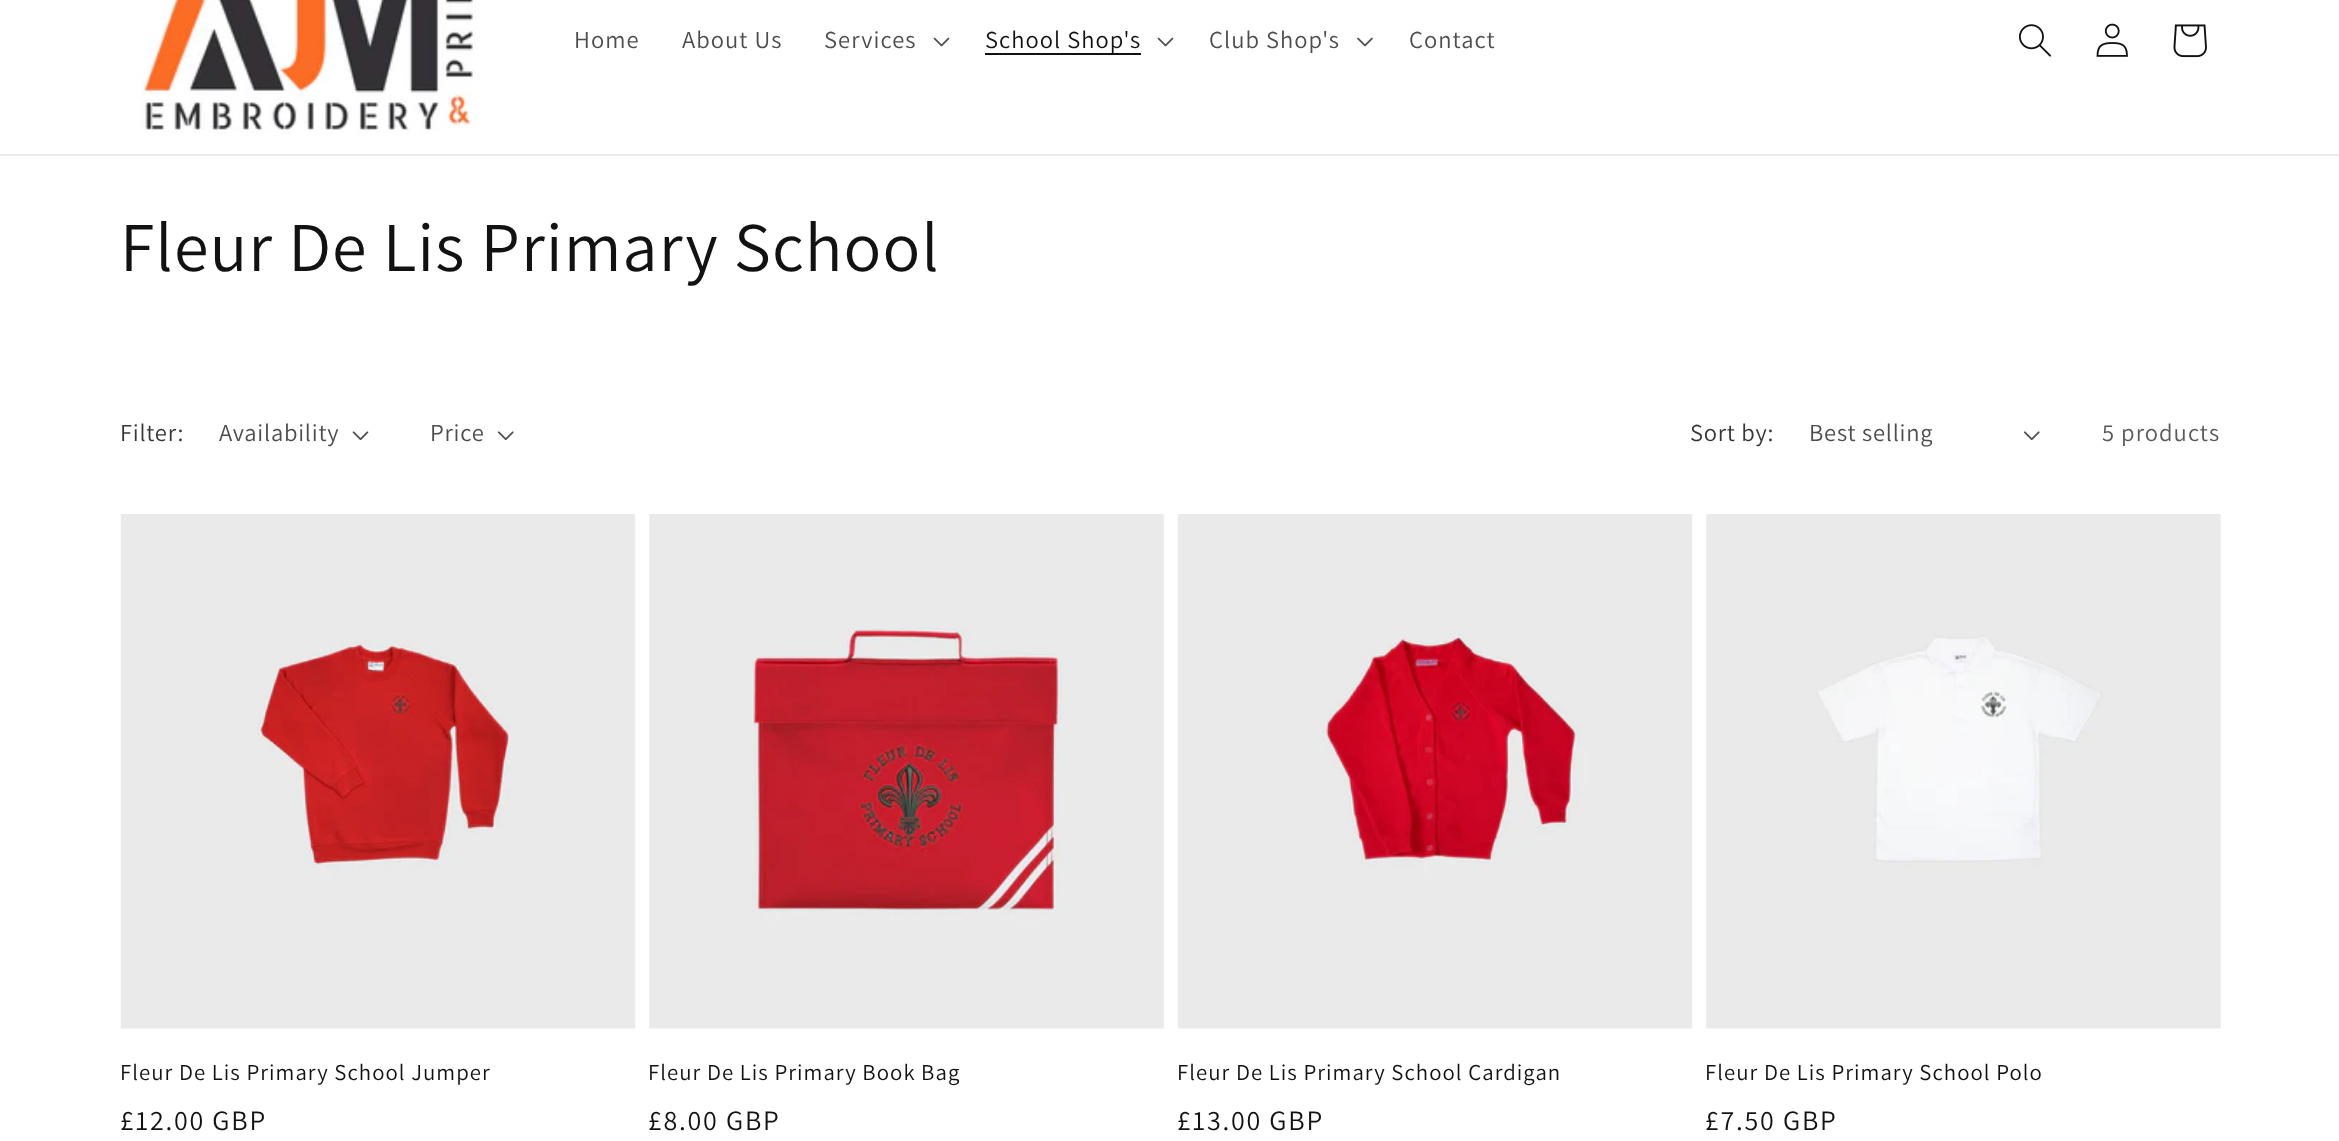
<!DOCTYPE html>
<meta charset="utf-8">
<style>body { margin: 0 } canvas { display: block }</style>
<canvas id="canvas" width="2339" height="1141"></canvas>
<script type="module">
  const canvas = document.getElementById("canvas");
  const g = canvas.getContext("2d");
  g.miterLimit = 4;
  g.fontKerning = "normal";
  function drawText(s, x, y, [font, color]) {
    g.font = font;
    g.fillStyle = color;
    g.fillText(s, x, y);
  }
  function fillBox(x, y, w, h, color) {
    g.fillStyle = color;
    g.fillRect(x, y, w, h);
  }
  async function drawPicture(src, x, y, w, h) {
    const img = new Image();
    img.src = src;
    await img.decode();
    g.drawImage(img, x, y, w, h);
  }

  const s1 = ["24.5px Assistant", "#4D4D4D"];
  const s2 = ["24.5px Assistant", "#121212"];
  const s3 = ["70px Assistant", "#121212"];
  const s4 = ["24.5px Assistant", "#363636"];
  const s5 = ["24.5px Assistant", "#595959"];
  const s6 = ["22.75px Assistant", "#121212"];
  const s7 = ["28px Assistant", "#121212"];

  fillBox(0, 0, 2339, 1141, "#FFFFFF");
  fillBox(0, 154, 2339, 2, "#ECECEC");
  await drawPicture("pic1.png", 135, 0, 341, 134);
  g.letterSpacing = "1.05px";
  drawText("Home", 574, 48, s1);
  drawText("About Us", 682, 48, s1);
  drawText("Services", 824, 48, s1);
  await drawPicture("pic2.png", 933, 37, 17, 10);
  fillBox(985, 53, 156, 2, "#121212");
  drawText("School Shop's", 985, 48, s2);
  await drawPicture("pic2.png", 1157, 37, 17, 10);
  drawText("Club Shop's", 1209, 48, s1);
  await drawPicture("pic3.png", 1357, 37, 16, 10);
  drawText("Contact", 1409, 48, s1);
  await drawPicture("pic4.png", 2019, 24, 32, 33);
  await drawPicture("pic5.png", 2096, 23, 32, 34);
  await drawPicture("pic6.png", 2173, 24, 34, 34);
  drawText("Fleur De Lis Primary School", 120, 271, s3);
  g.letterSpacing = "0.75px";
  drawText("Filter:", 120, 441, s4);
  drawText("Availability", 219, 441, s1);
  await drawPicture("pic7.png", 352, 431, 17, 10);
  drawText("Price", 430, 441, s1);
  await drawPicture("pic8.png", 497, 431, 17, 10);
  drawText("Sort by:", 1690, 441, s4);
  drawText("Best selling", 1809, 441, s1);
  await drawPicture("pic8.png", 2023, 431, 17, 10);
  g.letterSpacing = "1.05px";
  drawText("5 products", 2102, 441, s5);
  await drawPicture("pic9.png", 120, 514, 516, 515);
  drawText("Fleur De Lis Primary School Jumper", 120, 1080, s6);
  g.letterSpacing = "1.75px";
  drawText("£12.00 GBP", 120, 1130, s7);
  await drawPicture("pic10.png", 649, 514, 515, 515);
  g.letterSpacing = "1.05px";
  drawText("Fleur De Lis Primary Book Bag", 648, 1080, s6);
  g.letterSpacing = "1.75px";
  drawText("£8.00 GBP", 648, 1130, s7);
  await drawPicture("pic11.png", 1177, 514, 516, 515);
  g.letterSpacing = "1.05px";
  drawText("Fleur De Lis Primary School Cardigan", 1177, 1080, s6);
  g.letterSpacing = "1.75px";
  drawText("£13.00 GBP", 1177, 1130, s7);
  await drawPicture("pic12.png", 1706, 514, 515, 515);
  g.letterSpacing = "1.05px";
  drawText("Fleur De Lis Primary School Polo", 1705, 1080, s6);
  g.letterSpacing = "1.75px";
  drawText("£7.50 GBP", 1705, 1130, s7);
</script>
